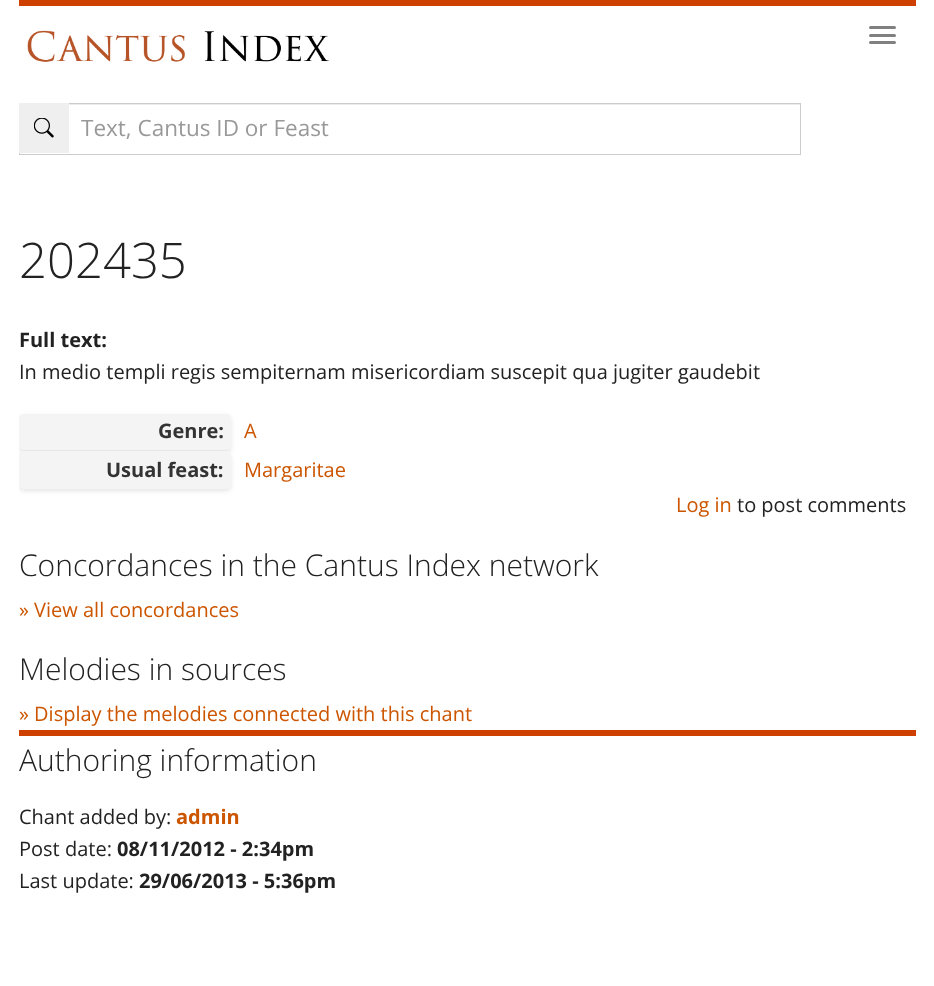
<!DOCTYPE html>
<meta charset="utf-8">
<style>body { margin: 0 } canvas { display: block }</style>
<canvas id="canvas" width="934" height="986"></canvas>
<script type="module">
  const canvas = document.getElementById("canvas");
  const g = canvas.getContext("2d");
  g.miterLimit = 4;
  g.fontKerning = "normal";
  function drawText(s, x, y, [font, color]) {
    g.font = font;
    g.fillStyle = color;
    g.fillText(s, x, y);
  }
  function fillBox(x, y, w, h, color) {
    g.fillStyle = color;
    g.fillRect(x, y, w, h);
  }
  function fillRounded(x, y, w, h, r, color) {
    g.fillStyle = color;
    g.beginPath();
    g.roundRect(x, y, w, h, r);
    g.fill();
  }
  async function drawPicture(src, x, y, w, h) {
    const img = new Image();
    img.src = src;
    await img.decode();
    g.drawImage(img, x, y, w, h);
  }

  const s1 = ["22.5px Open Sans", "#999999"];
  const s2 = ["300 49px Open Sans", "#222222"];
  const s3 = ["bold 20px Open Sans", "#222222"];
  const s4 = ["20px Open Sans", "#222222"];
  const s5 = ["bold 20px Open Sans", "#333333"];
  const s6 = ["20px Open Sans", "#CC5500"];
  const s7 = ["300 30px Open Sans", "#222222"];
  const s8 = ["bold 20px Open Sans", "#CC5500"];

  fillBox(0, 0, 934, 986, "#FFFFFF");
  fillBox(19, 0, 897, 6, "#CE4000");
  await drawPicture("pic1.png", 27, 30, 302, 32);
  fillRounded(869, 26, 27, 3, 1.5, "#808080");
  fillRounded(869, 34, 27, 3, 1.5, "#808080");
  fillRounded(869, 41, 27, 3, 1.5, "#808080");
  fillBox(69, 104, 731, 1, "#ECECEC");
  g.strokeStyle = "#CCCCCC";
  g.strokeRect(19.5, 103.5, 781, 51);
  fillBox(19, 103, 50, 50, "#EFEFEF");
  await drawPicture("pic2.png", 34, 118, 20, 20);
  drawText("Text, Cantus ID or Feast", 81, 136, s1);
  drawText("202435", 19, 278, s2);
  drawText("Full text:", 19, 347, s3);
  drawText("In medio templi regis sempiternam misericordiam suscepit qua jugiter gaudebit", 19, 379, s4);
  g.save();
  g.beginPath();
  g.rect(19, 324, 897, 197);
  g.clip();
  g.fillStyle = "rgba(0, 0, 0, 0.1)";
  g.filter = "blur(2.5px)";
  g.beginPath();
  g.roundRect(19, 416, 212, 37, 5);
  g.fill();
  g.filter = "none";
  g.restore();
  fillRounded(19, 414, 212, 36, 5, "#F4F4F4");
  drawText("Genre:", 158, 438, s5);
  drawText("A", 244, 438, s6);
  g.save();
  g.beginPath();
  g.rect(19, 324, 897, 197);
  g.clip();
  g.fillStyle = "rgba(0, 0, 0, 0.1)";
  g.filter = "blur(2.5px)";
  g.beginPath();
  g.roundRect(19, 454, 212, 37, 5);
  g.fill();
  g.filter = "none";
  g.restore();
  fillRounded(19, 451, 212, 38, 5, "#F4F4F4");
  drawText("Usual feast:", 106, 477, s5);
  drawText("Margaritae", 244, 477, s6);
  drawText("Log in", 676, 512, s6);
  drawText("to post comments", 737, 512, s4);
  drawText("Concordances in the Cantus Index network", 19, 576, s7);
  drawText("» View all concordances", 19, 617, s6);
  drawText("Melodies in sources", 19, 680, s7);
  drawText("» Display the melodies connected with this chant", 19, 721, s6);
  fillBox(19, 730, 897, 6, "#CE4000");
  drawText("Authoring information", 19, 771, s7);
  drawText("Chant added by:", 19, 824, s4);
  drawText("admin", 176, 824, s8);
  drawText("Post date:", 19, 856, s4);
  drawText("08/11/2012 - 2:34pm", 117, 856, s3);
  drawText("Last update:", 19, 888, s4);
  drawText("29/06/2013 - 5:36pm", 139, 888, s3);
</script>
